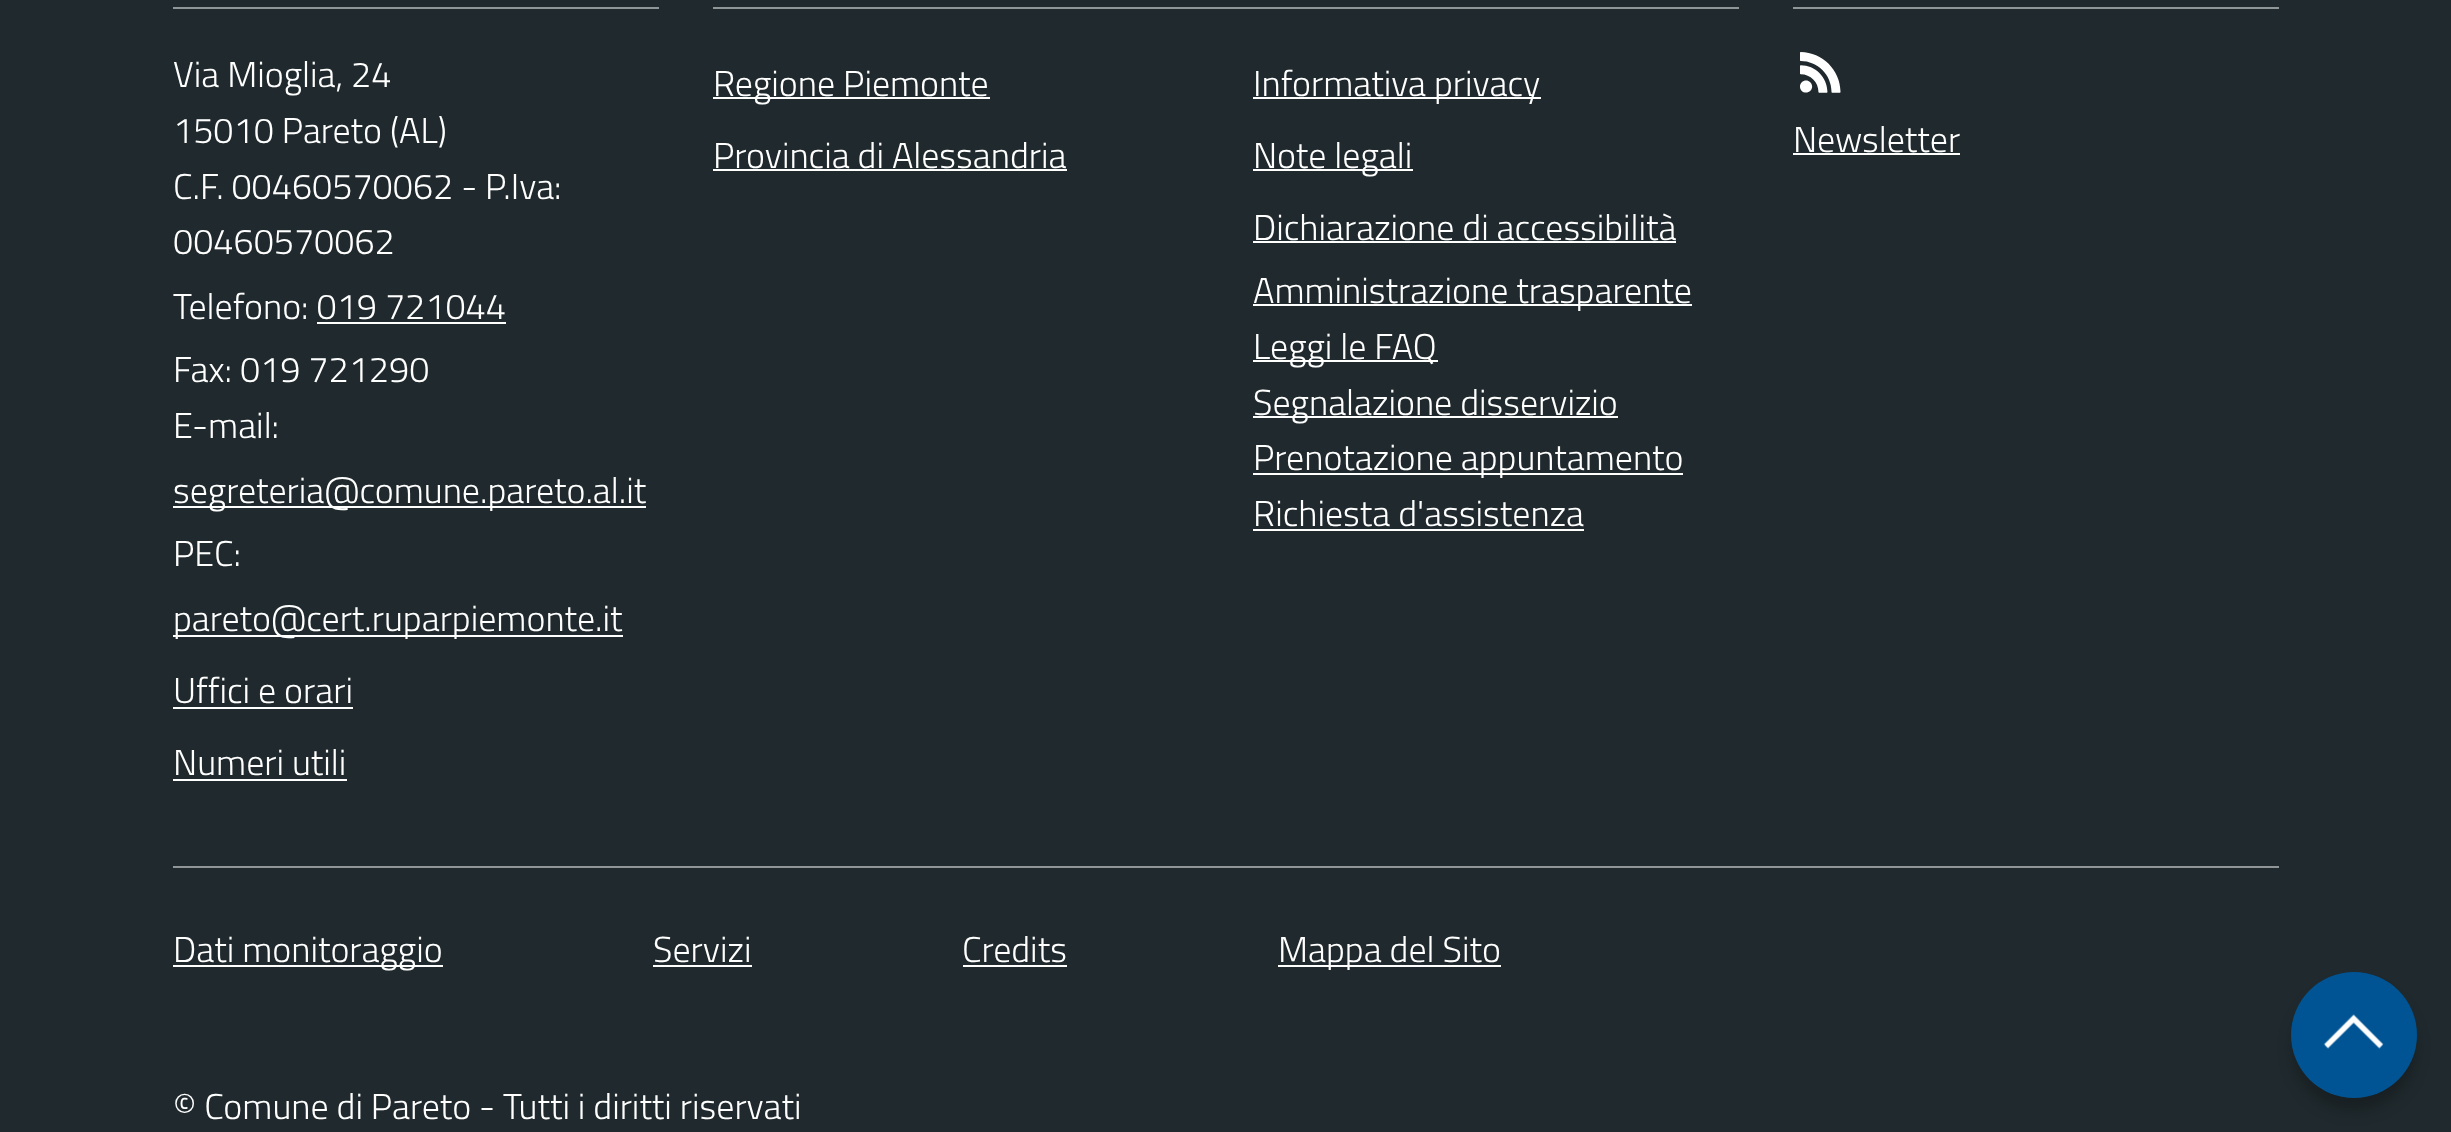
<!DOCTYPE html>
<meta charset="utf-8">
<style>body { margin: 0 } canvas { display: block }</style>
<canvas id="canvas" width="2451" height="1132"></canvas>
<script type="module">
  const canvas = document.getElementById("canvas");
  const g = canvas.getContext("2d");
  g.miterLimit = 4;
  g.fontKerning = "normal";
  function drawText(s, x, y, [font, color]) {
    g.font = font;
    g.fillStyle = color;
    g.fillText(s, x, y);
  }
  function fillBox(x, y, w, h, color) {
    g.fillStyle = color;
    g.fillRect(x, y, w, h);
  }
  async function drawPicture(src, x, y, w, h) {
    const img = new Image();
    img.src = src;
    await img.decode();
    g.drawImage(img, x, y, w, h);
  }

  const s1 = ["300 36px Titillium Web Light", "#FFFFFF"];

  fillBox(0, 0, 2451, 1132, "#202A2E");
  fillBox(173, 7, 486, 2, "#909597");
  drawText("Via Mioglia, 24", 173, 87, s1);
  drawText("15010 Pareto (AL)", 173, 143, s1);
  drawText("C.F. 00460570062 - P.Iva:", 173, 199, s1);
  drawText("00460570062", 173, 254, s1);
  drawText("Telefono: 019 721044", 173, 319, s1);
  fillBox(317, 322, 189, 2, "#FFFFFF");
  drawText("Fax: 019 721290", 173, 382, s1);
  drawText("E-mail:", 173, 438, s1);
  fillBox(173, 506, 473, 2, "#FFFFFF");
  drawText("segreteria@comune.pareto.al.it", 173, 503, s1);
  drawText("PEC:", 173, 566, s1);
  fillBox(173, 635, 450, 2, "#FFFFFF");
  drawText("pareto@cert.ruparpiemonte.it", 173, 631, s1);
  drawText("Uffici e orari", 173, 703, s1);
  fillBox(173, 707, 180, 2, "#FFFFFF");
  drawText("Numeri utili", 173, 775, s1);
  fillBox(173, 779, 174, 2, "#FFFFFF");
  fillBox(713, 7, 1026, 2, "#909597");
  fillBox(713, 97, 277, 2, "#FFFFFF");
  drawText("Regione Piemonte", 713, 96, s1);
  drawText("Provincia di Alessandria", 713, 168, s1);
  fillBox(713, 169, 354, 2, "#FFFFFF");
  fillBox(1253, 97, 288, 2, "#FFFFFF");
  drawText("Informativa privacy", 1253, 96, s1);
  fillBox(1253, 169, 160, 2, "#FFFFFF");
  drawText("Note legali", 1253, 168, s1);
  drawText("Dichiarazione di accessibilità", 1253, 240, s1);
  fillBox(1253, 241, 423, 2, "#FFFFFF");
  fillBox(1253, 304, 439, 2, "#FFFFFF");
  drawText("Amministrazione trasparente", 1253, 303, s1);
  fillBox(1253, 360, 185, 2, "#FFFFFF");
  drawText("Leggi le FAQ", 1253, 359, s1);
  fillBox(1253, 416, 365, 2, "#FFFFFF");
  drawText("Segnalazione disservizio", 1253, 415, s1);
  fillBox(1253, 473, 430, 2, "#FFFFFF");
  drawText("Prenotazione appuntamento", 1253, 470, s1);
  drawText("Richiesta d'assistenza", 1253, 526, s1);
  fillBox(1253, 529, 331, 2, "#FFFFFF");
  fillBox(1793, 7, 486, 2, "#909597");
  await drawPicture("pic1.png", 1800, 52, 41, 41);
  drawText("Newsletter", 1793, 152, s1);
  fillBox(1793, 153, 167, 2, "#FFFFFF");
  fillBox(173, 866, 2106, 2, "#909597");
  fillBox(173, 965, 270, 2, "#FFFFFF");
  drawText("Dati monitoraggio", 173, 962, s1);
  drawText("Servizi", 653, 962, s1);
  fillBox(653, 965, 99, 2, "#FFFFFF");
  drawText("Credits", 962, 962, s1);
  fillBox(963, 965, 104, 2, "#FFFFFF");
  fillBox(1278, 965, 223, 2, "#FFFFFF");
  drawText("Mappa del Sito", 1278, 962, s1);
  drawText("© Comune di Pareto - Tutti i diritti riservati", 173, 1119, s1);
  g.fillStyle = "rgba(0, 0, 0, 0.23)";
  g.filter = "blur(7px)";
  g.beginPath();
  g.roundRect(2291, 986, 126, 126, 63);
  g.fill();
  g.filter = "none";
  g.fillStyle = "#005493";
  g.beginPath();
  g.arc(2354, 1035, 63, 0, Math.PI * 2);
  g.fill();
  await drawPicture("pic2.png", 2323, 1014, 61, 35);
</script>
